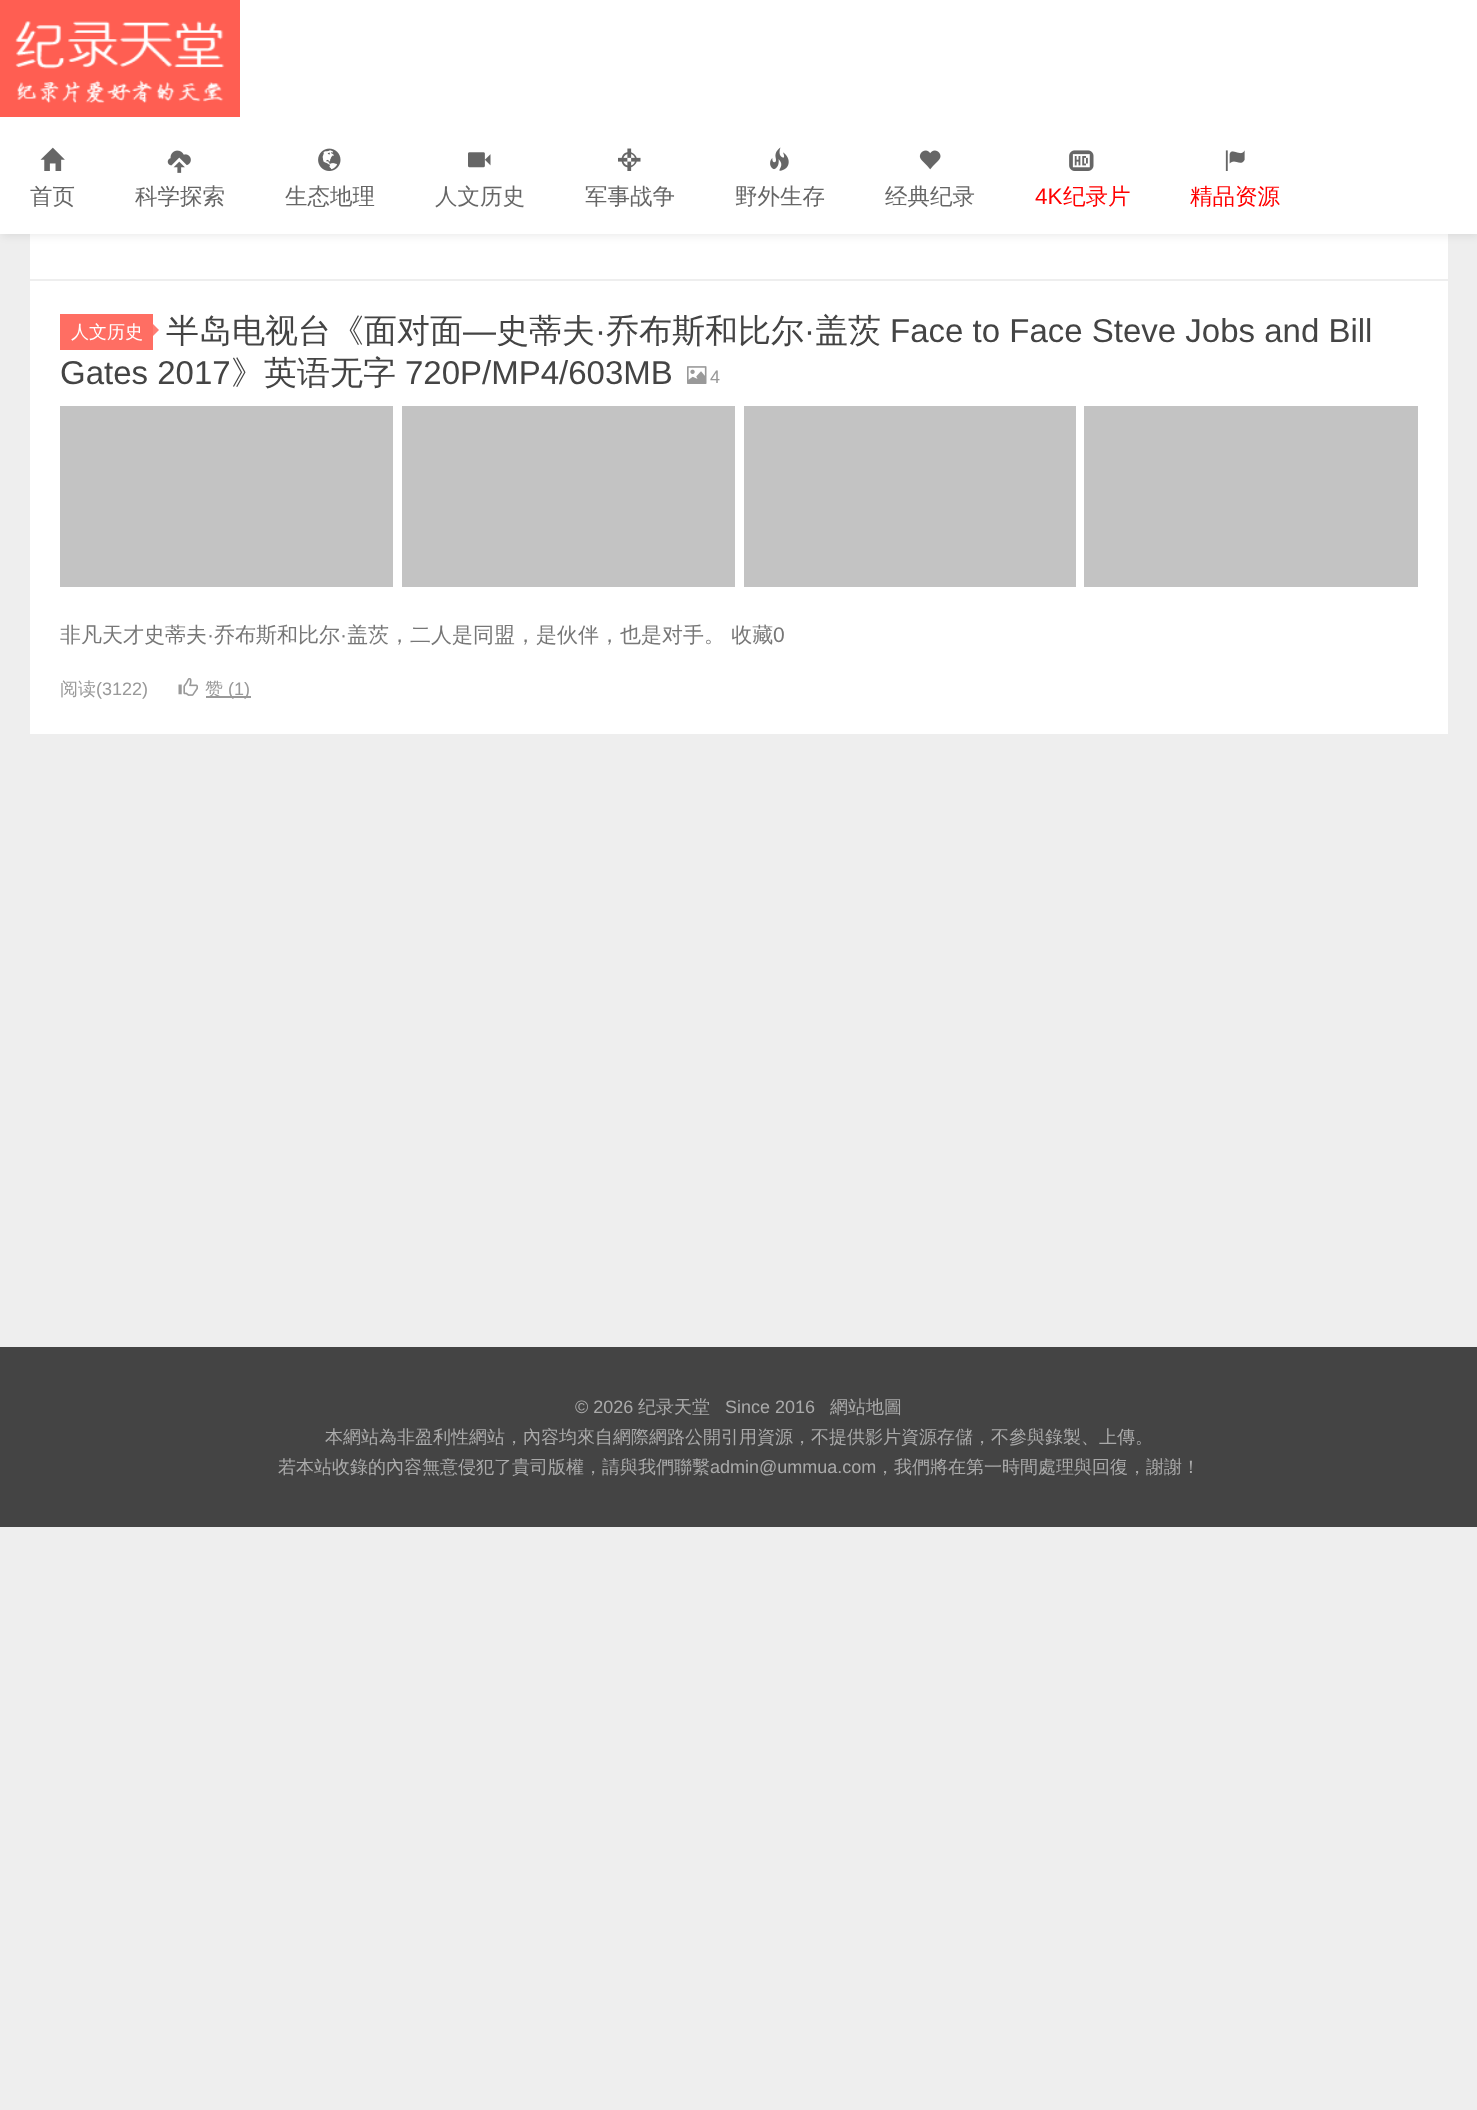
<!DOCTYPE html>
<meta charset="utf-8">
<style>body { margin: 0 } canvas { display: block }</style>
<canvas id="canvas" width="1477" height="2110"></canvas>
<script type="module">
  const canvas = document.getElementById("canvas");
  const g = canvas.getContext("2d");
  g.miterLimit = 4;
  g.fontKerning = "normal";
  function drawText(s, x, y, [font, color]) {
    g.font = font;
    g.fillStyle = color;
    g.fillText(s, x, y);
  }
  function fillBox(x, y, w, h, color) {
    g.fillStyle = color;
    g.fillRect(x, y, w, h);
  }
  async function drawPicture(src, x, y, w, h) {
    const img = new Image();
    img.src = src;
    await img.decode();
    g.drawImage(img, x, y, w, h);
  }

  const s1 = ["500 22.5px WenQuanYi Zen Hei", "#666666"];
  const s2 = ["22.5px Liberation Sans", "#FF0000"];
  const s3 = ["500 22.5px WenQuanYi Zen Hei", "#FF0000"];
  const s4 = ["500 18px WenQuanYi Zen Hei", "#FFFFFF"];
  const s5 = ["500 33px WenQuanYi Zen Hei", "#444444"];
  const s6 = ["33px Liberation Sans", "#444444"];
  const s7 = ["18px Liberation Sans", "#999999"];
  const s8 = ["500 21px WenQuanYi Zen Hei", "#777777"];
  const s9 = ["21px Liberation Sans", "#777777"];
  const s10 = ["500 18px WenQuanYi Zen Hei", "#999999"];
  const s11 = ["18px Liberation Sans", "#AAAAAA"];
  const s12 = ["500 18px WenQuanYi Zen Hei", "#AAAAAA"];

  fillBox(0, 0, 1477, 2110, "#EEEEEE");
  fillBox(30, 234, 1418, 45, "#FFFFFF");
  g.fillStyle = "rgba(0, 0, 0, 0.08)";
  g.filter = "blur(4px)";
  g.beginPath();
  g.rect(2, 2, 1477, 234);
  g.fill();
  g.filter = "none";
  fillBox(0, 0, 1477, 234, "#FFFFFF");
  fillBox(0, 0, 240, 117, "#FF5E52");
  await drawPicture("pic1.png", 15, 21, 210, 82);
  await drawPicture("pic2.png", 40, 147, 25, 24);
  drawText("首页", 30, 204, s1);
  await drawPicture("pic3.png", 167, 150, 24, 23);
  drawText("科学探索", 135, 204, s1);
  await drawPicture("pic4.png", 318, 148, 23, 23);
  drawText("生态地理", 285, 204, s1);
  await drawPicture("pic5.png", 468, 152, 23, 16);
  drawText("人文历史", 435, 204, s1);
  await drawPicture("pic6.png", 618, 148, 23, 23);
  drawText("军事战争", 585, 204, s1);
  await drawPicture("pic7.png", 770, 147, 19, 24);
  drawText("野外生存", 735, 204, s1);
  await drawPicture("pic8.png", 919, 150, 22, 20);
  drawText("经典纪录", 885, 204, s1);
  await drawPicture("pic9.png", 1069, 150, 25, 21);
  drawText("4K", 1035, 204, s2);
  drawText("纪录片", 1063, 204, s3);
  await drawPicture("pic10.png", 1225, 150, 20, 21);
  drawText("精品资源", 1190, 204, s3);
  fillBox(30, 281, 1418, 453, "#FFFFFF");
  fillBox(60, 314, 93, 36, "#FF6E63");
  drawText("人文历史", 71, 338, s4);
  g.fillStyle = "#FF7D73";
  g.beginPath();
  g.moveTo(153, 336);
  g.lineTo(153, 324);
  g.lineTo(159, 330);
  g.closePath();
  g.fill();
  drawText("半岛电视台《面对面", 166, 342, s5);
  drawText("—", 463, 342, s6);
  drawText("史蒂夫", 496, 342, s5);
  drawText("·", 595, 342, s6);
  drawText("乔布斯和比尔", 606, 342, s5);
  drawText("·", 804, 342, s6);
  drawText("盖茨", 815, 342, s5);
  drawText("Face to Face Steve Jobs and Bill", 890, 342, s6);
  drawText("Gates 2017", 60, 384, s6);
  drawText("》英语无字", 231, 384, s5);
  drawText("720P/MP4/603MB", 405, 384, s6);
  await drawPicture("pic11.png", 687, 366, 20, 18);
  drawText("4", 710, 383, s7);
  fillBox(60, 406, 333, 181, "#C3C3C3");
  fillBox(402, 406, 333, 181, "#C3C3C3");
  fillBox(744, 406, 332, 181, "#C3C3C3");
  fillBox(1084, 406, 334, 181, "#C3C3C3");
  drawText("非凡天才史蒂夫", 60, 642, s8);
  drawText("·", 207, 642, s9);
  drawText("乔布斯和比尔", 214, 642, s8);
  drawText("·", 340, 642, s9);
  drawText("盖茨，二人是同盟，是伙伴，也是对手。 收藏", 347, 642, s8);
  drawText("0", 773, 642, s9);
  drawText("阅读", 60, 695, s10);
  drawText("(3122)", 96, 695, s7);
  await drawPicture("pic12.png", 178, 678, 20, 18);
  fillBox(206, 696, 45, 2, "#999999");
  drawText("赞", 205, 695, s10);
  drawText("(1)", 228, 695, s7);
  fillBox(0, 1347, 1477, 180, "#444444");
  drawText("© 2026", 575, 1413, s11);
  drawText("纪录天堂", 638, 1413, s12);
  drawText("Since 2016", 725, 1413, s11);
  drawText("網站地圖", 830, 1413, s12);
  drawText("本網站為非盈利性網站，內容均來自網際網路公開引用資源，不提供影片資源存儲，不參與錄製、上傳。", 325, 1443, s12);
  drawText("若本站收錄的內容無意侵犯了貴司版權，請與我們聯繫", 278, 1473, s12);
  drawText("admin@ummua.com", 710, 1473, s11);
  drawText("，我們將在第一時間處理與回復，謝謝！", 876, 1473, s12);
</script>
